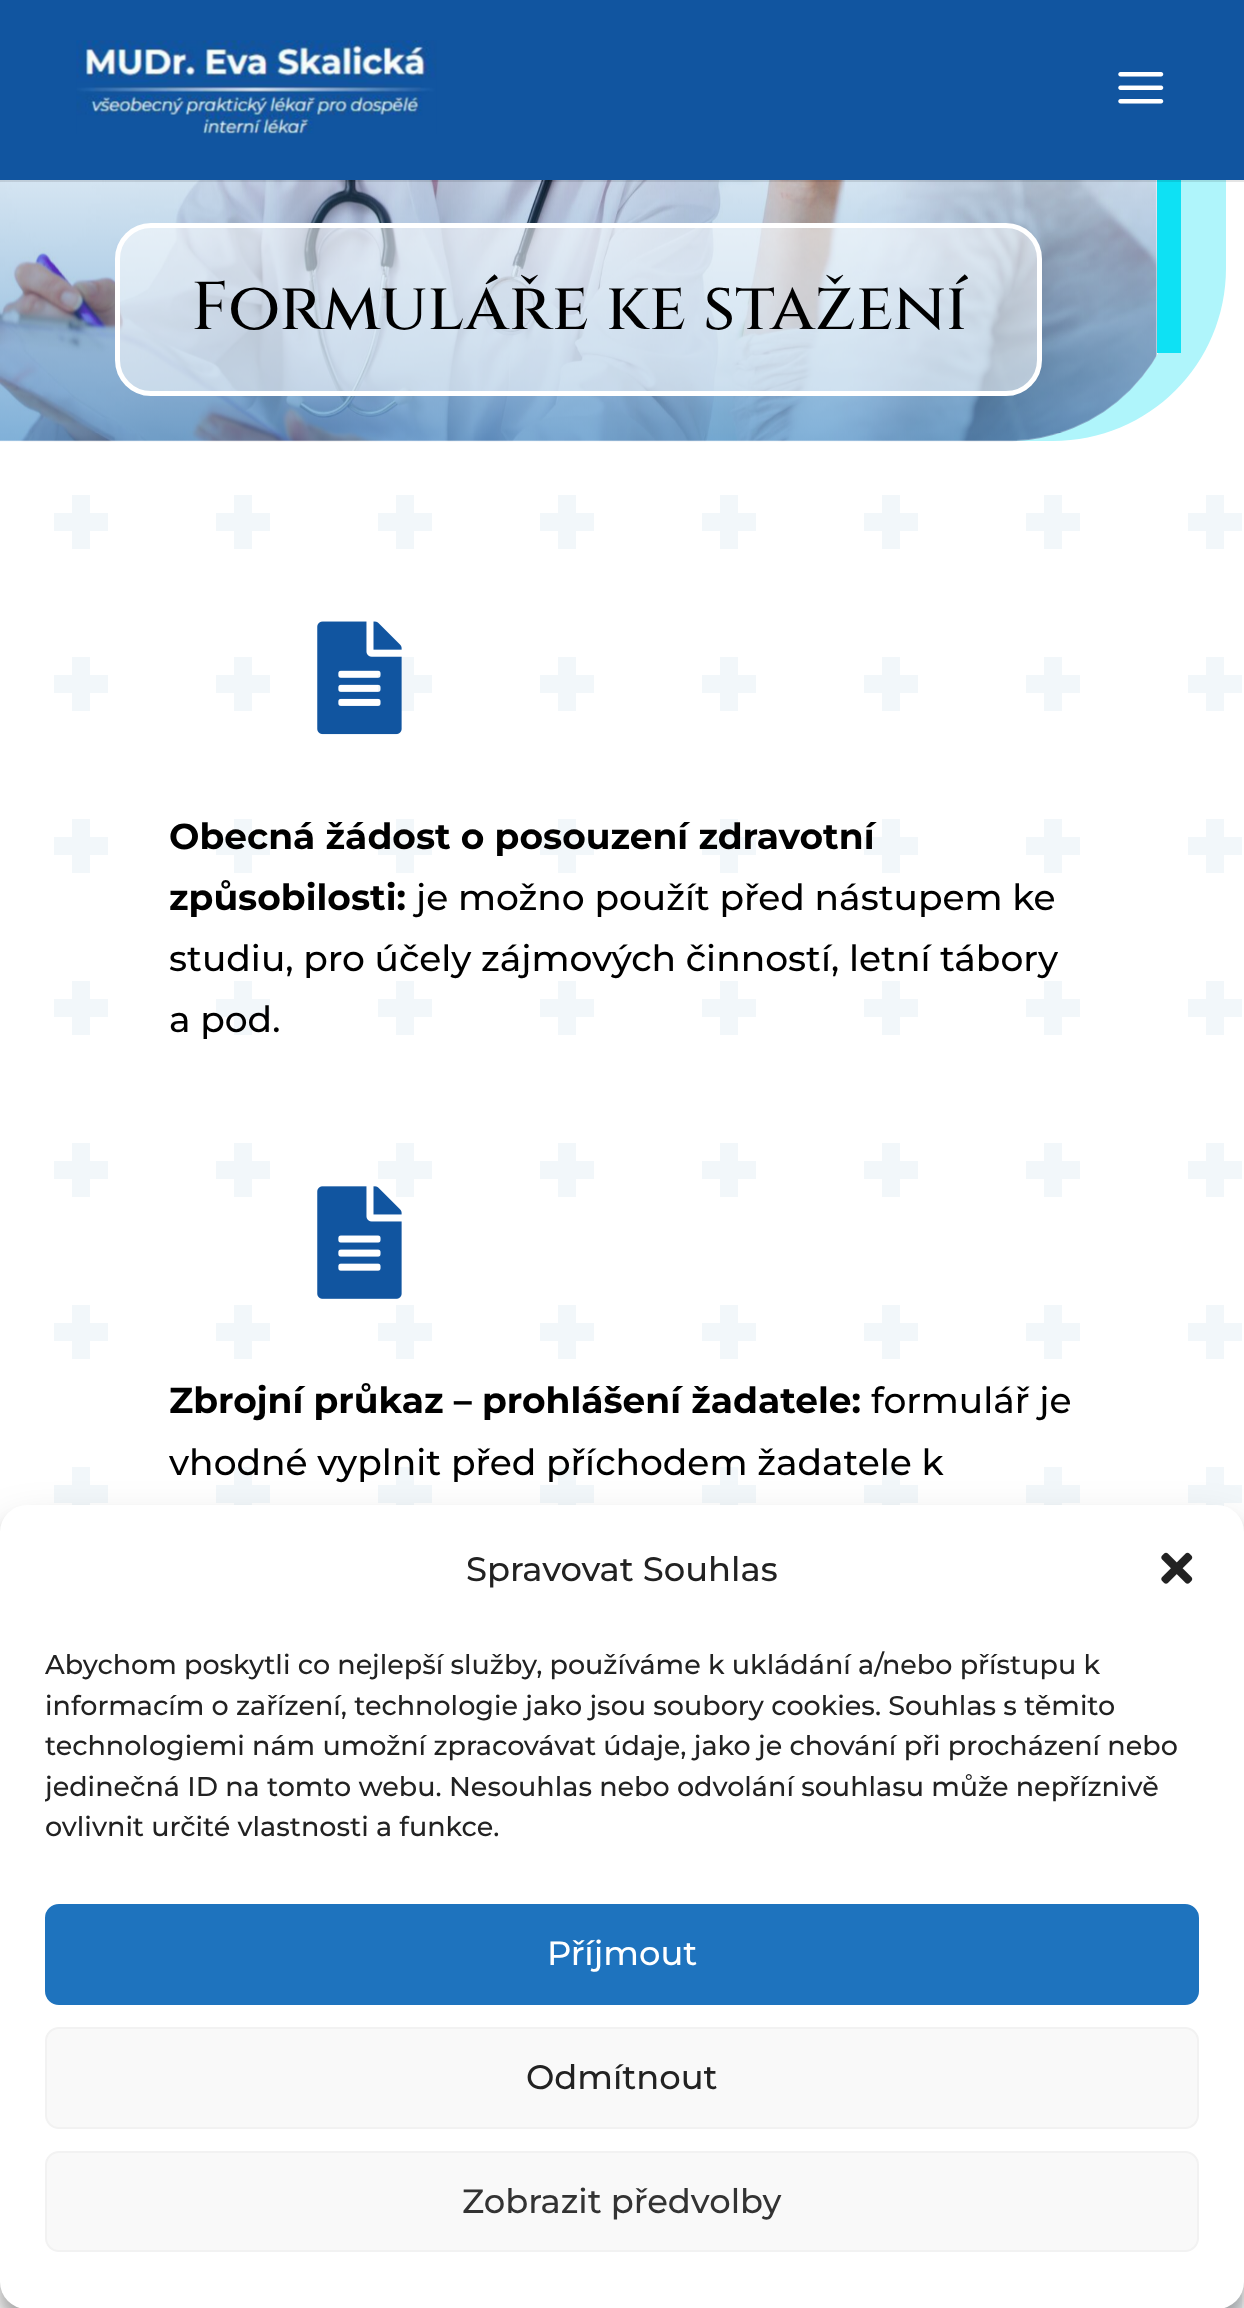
<!DOCTYPE html>
<meta charset="utf-8">
<style>body { margin: 0 } canvas { display: block }</style>
<canvas id="canvas" width="1244" height="2308"></canvas>
<script type="module">
  const canvas = document.getElementById("canvas");
  const g = canvas.getContext("2d");
  g.miterLimit = 4;
  g.fontKerning = "normal";
  function drawText(s, x, y, [font, color]) {
    g.font = font;
    g.fillStyle = color;
    g.fillText(s, x, y);
  }
  function fillBox(x, y, w, h, color) {
    g.fillStyle = color;
    g.fillRect(x, y, w, h);
  }
  function fillRounded(x, y, w, h, r, color) {
    g.fillStyle = color;
    g.beginPath();
    g.roundRect(x, y, w, h, r);
    g.fill();
  }
  async function drawPicture(src, x, y, w, h) {
    const img = new Image();
    img.src = src;
    await img.decode();
    g.drawImage(img, x, y, w, h);
  }

  const s1 = ["500 67.5px Cinzel", "#000000"];
  const s2 = ["100 36px Montserrat", "#000000"];
  const s3 = ["100 36px 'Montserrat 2'", "#000000"];
  const s4 = ["100 33.75px 'Montserrat 2'", "#222222"];
  const s5 = ["100 27px 'Montserrat 2'", "#222222"];
  const s6 = ["100 33.75px 'Montserrat 2'", "#FFFFFF"];
  const s7 = ["100 33.75px 'Montserrat 2'", "#333333"];

  fillBox(0, 0, 1244, 2308, "#FFFFFF");
  g.fillStyle = "#AFF5FB";
  g.beginPath();
  g.moveTo(1007, 441);
  g.lineTo(1053, 441);
  g.bezierCurveTo(1149, 441, 1226, 364, 1226, 268);
  g.lineTo(1226, 178);
  g.lineTo(1181, 178);
  g.lineTo(1181, 267);
  g.bezierCurveTo(1181, 363, 1103, 441, 1007, 441);
  g.closePath();
  g.fill();
  await drawPicture("pic3.png", 0, 180, 1157, 262);
  fillBox(1157, 180, 24, 173, "#0EE1F4");
  fillBox(0, 180, 1244, 2, "rgba(0, 0, 0, 0.1)");
  fillBox(0, 0, 1244, 180, "#1155A0");
  await drawPicture("pic1.png", 76, 40, 361, 94);
  await drawPicture("pic2.png", 1118, 72, 46, 32);
  g.fillStyle = "rgba(255, 255, 255, 0.56)";
  g.beginPath();
  g.roundRect(117.5, 225.5, 922, 168, 33.5);
  g.fill();
  g.strokeStyle = "#FFFFFF";
  g.lineWidth = 5;
  g.stroke();
  drawText("Formuláře ke stažení", 191, 329, s1);
  await drawPicture("pic4.png", 54, 495, 1188, 1813);
  await drawPicture("pic5.png", 317, 621, 85, 114);
  drawText("Obecná žádost o posouzení zdravotní", 169, 849, s2);
  drawText("způsobilosti:", 169, 910, s2);
  drawText("je možno použít před nástupem ke", 416, 910, s3);
  drawText("studiu, pro účely zájmových činností, letní tábory", 169, 971, s3);
  drawText("a pod.", 169, 1032, s3);
  await drawPicture("pic6.png", 317, 1186, 85, 113);
  drawText("Zbrojní průkaz – prohlášení žadatele:", 169, 1413, s2);
  drawText("formulář je", 871, 1413, s3);
  drawText("vhodné vyplnit před příchodem žadatele k", 169, 1475, s3);
  g.fillStyle = "rgba(0, 0, 0, 0.23)";
  g.filter = "blur(7px)";
  g.beginPath();
  g.roundRect(0, 1519, 1244, 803, 27);
  g.fill();
  g.filter = "none";
  g.fillStyle = "rgba(0, 0, 0, 0.19)";
  g.filter = "blur(22.5px)";
  g.beginPath();
  g.roundRect(0, 1528, 1244, 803, 27);
  g.fill();
  g.filter = "none";
  fillRounded(0, 1505, 1244, 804, 27, "#FFFFFF");
  drawText("Spravovat Souhlas", 466, 1581, s4);
  await drawPicture("pic7.png", 1161, 1552, 32, 32);
  drawText("Abychom poskytli co nejlepší služby, používáme k ukládání a/nebo přístupu k", 45, 1674, s5);
  drawText("informacím o zařízení, technologie jako jsou soubory cookies. Souhlas s těmito", 45, 1715, s5);
  drawText("technologiemi nám umožní zpracovávat údaje, jako je chování při procházení nebo", 45, 1755, s5);
  g.save();
  g.beginPath();
  g.rect(45, 1645, 1154, 214);
  g.clip();
  drawText("jedinečná ID na tomto webu. Nesouhlas nebo odvolání souhlasu může nepříznivě", 45, 1796, s5);
  g.restore();
  drawText("ovlivnit určité vlastnosti a funkce.", 45, 1836, s5);
  g.fillStyle = "#1E73BE";
  g.beginPath();
  g.roundRect(46, 1905, 1152, 99, 13);
  g.fill();
  g.strokeStyle = "#1E73BE";
  g.lineWidth = 2;
  g.stroke();
  drawText("Příjmout", 547, 1965, s6);
  g.fillStyle = "#F9F9F9";
  g.beginPath();
  g.roundRect(46, 2028, 1152, 100, 13);
  g.fill();
  g.strokeStyle = "#F2F2F2";
  g.stroke();
  drawText("Odmítnout", 526, 2089, s4);
  g.fillStyle = "#F9F9F9";
  g.beginPath();
  g.roundRect(46, 2152, 1152, 99, 13);
  g.fill();
  g.stroke();
  drawText("Zobrazit předvolby", 462, 2213, s7);
</script>
